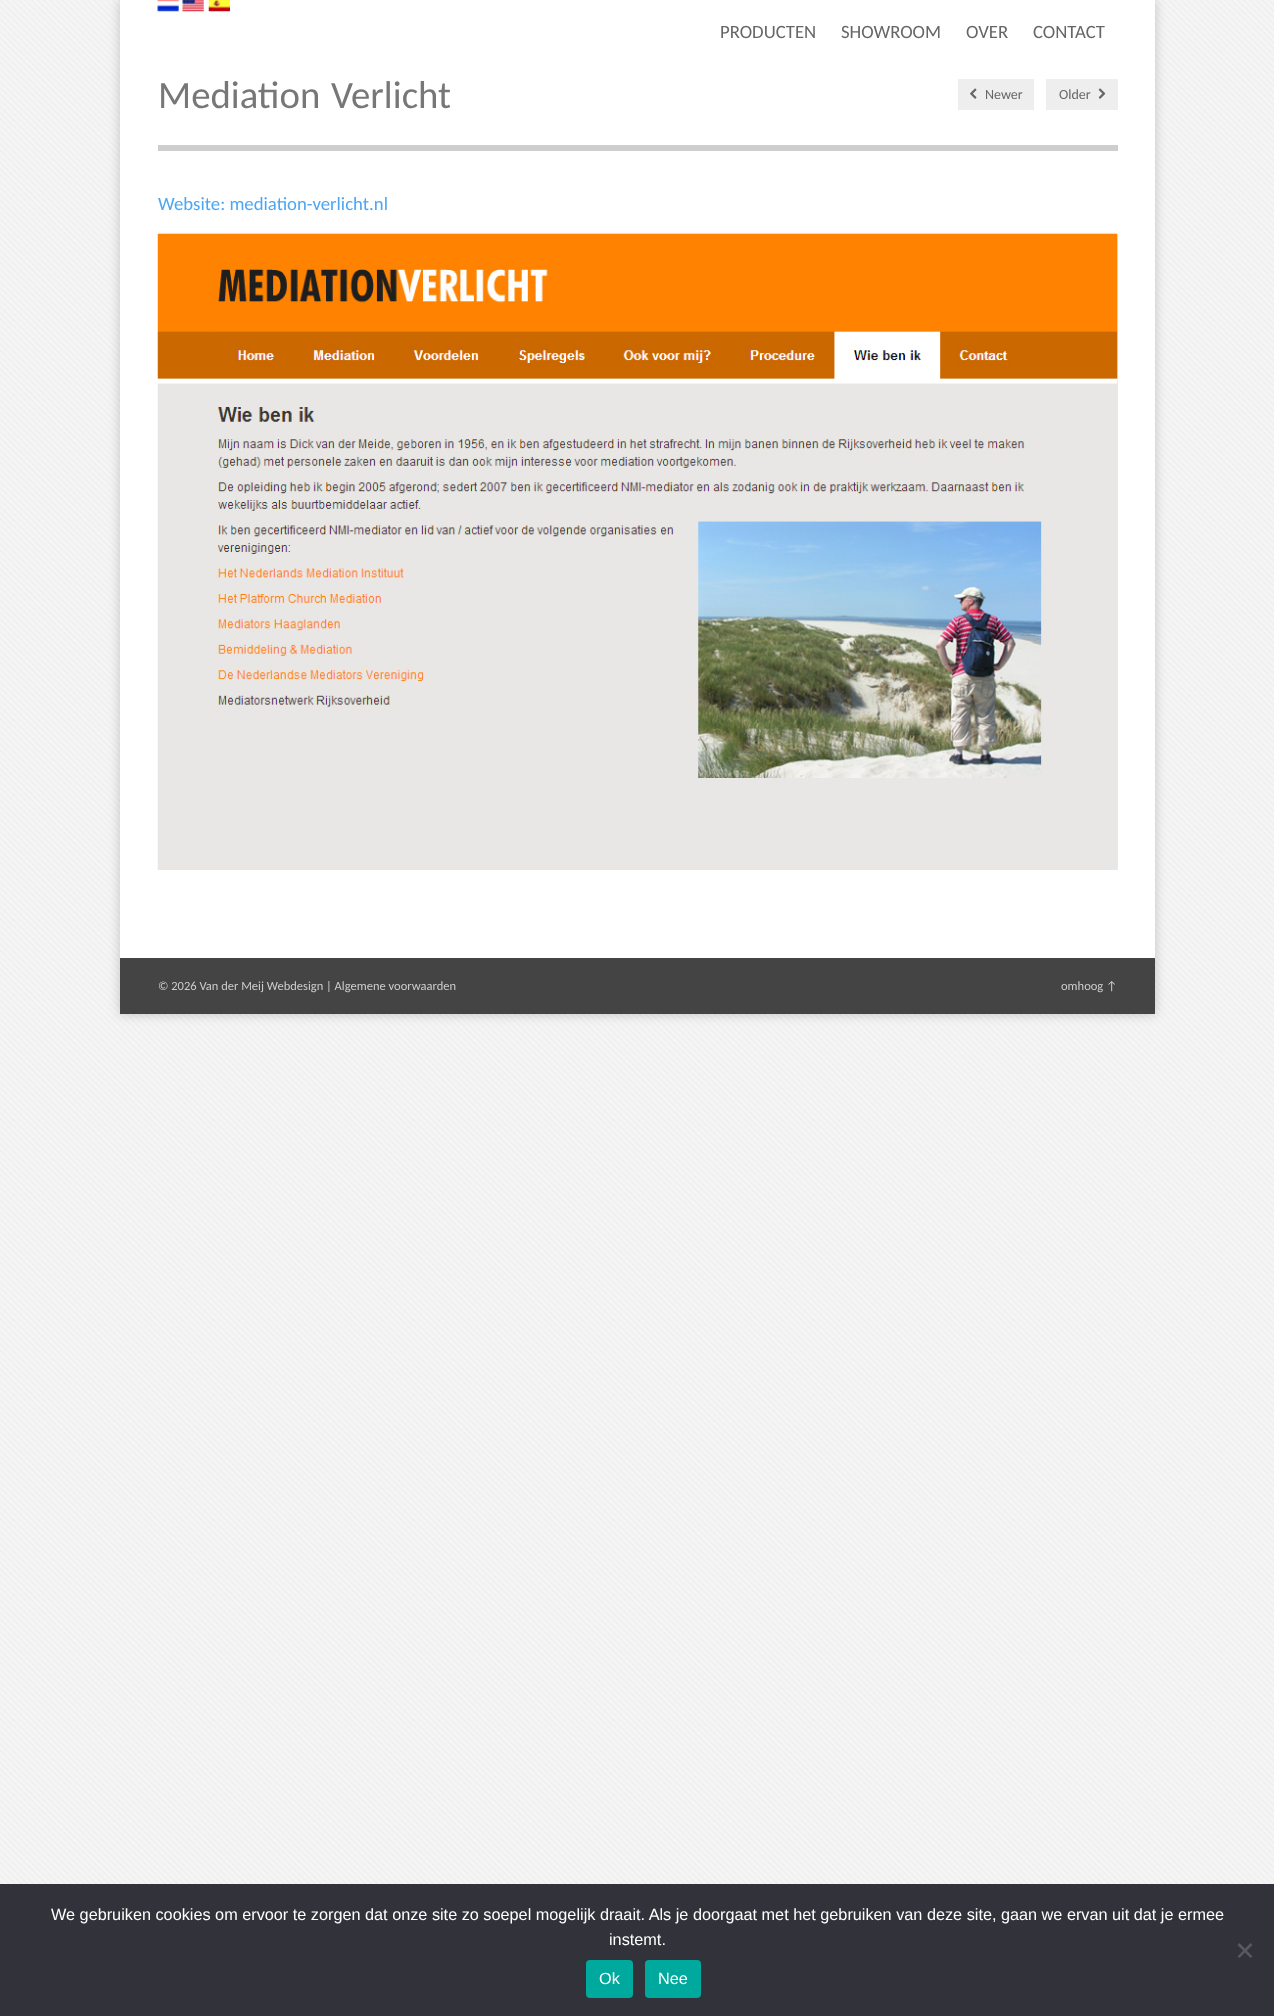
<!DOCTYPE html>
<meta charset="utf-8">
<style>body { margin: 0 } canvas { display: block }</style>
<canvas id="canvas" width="1274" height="2016"></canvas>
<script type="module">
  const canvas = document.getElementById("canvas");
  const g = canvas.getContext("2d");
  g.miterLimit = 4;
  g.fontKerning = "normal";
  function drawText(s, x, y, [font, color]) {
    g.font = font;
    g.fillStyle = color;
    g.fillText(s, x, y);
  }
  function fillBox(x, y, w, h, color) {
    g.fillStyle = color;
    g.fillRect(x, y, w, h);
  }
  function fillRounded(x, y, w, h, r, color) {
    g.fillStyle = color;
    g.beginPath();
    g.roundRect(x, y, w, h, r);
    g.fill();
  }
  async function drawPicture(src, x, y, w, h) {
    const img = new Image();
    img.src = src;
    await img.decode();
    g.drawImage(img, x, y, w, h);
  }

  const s1 = ["18.75px Carlito", "#666666"];
  const s2 = ["38.75px Carlito", "#777777"];
  const s3 = ["14px Carlito", "#666666"];
  const s4 = ["18.75px Carlito", "#4DA6F2"];
  const s5 = ["12.5px Carlito", "#CCCCCC"];
  const s6 = ["16.25px Liberation Sans", "#FFFFFF"];

  fillBox(0, 0, 1274, 2016, "#FFFFFF");
  await drawPicture("pic1.png", 0, 0, 1274, 1884);
  g.fillStyle = "rgba(0, 0, 0, 0.2)";
  g.filter = "blur(6px)";
  g.beginPath();
  g.rect(120, 0, 1035, 1014);
  g.fill();
  g.filter = "none";
  fillBox(120, 0, 1035, 958, "#FFFFFF");
  await drawPicture("pic2.png", 157, 0, 22, 12);
  await drawPicture("pic3.png", 182, 0, 22, 12);
  await drawPicture("pic4.png", 208, 0, 22, 12);
  drawText("PRODUCTEN", 720, 38, s1);
  drawText("SHOWROOM", 841, 38, s1);
  drawText("OVER", 966, 38, s1);
  drawText("CONTACT", 1033, 38, s1);
  fillBox(158, 145, 960, 6, "#CECECE");
  g.wordSpacing = "2px";
  drawText("Mediation Verlicht", 158, 108, s2);
  fillBox(958, 79, 76, 31, "#EEEEEE");
  await drawPicture("pic5.png", 970, 88, 7, 11);
  g.wordSpacing = "0px";
  drawText("Newer", 985, 99, s3);
  fillBox(1046, 79, 72, 31, "#EEEEEE");
  drawText("Older", 1059, 99, s3);
  await drawPicture("pic6.png", 1098, 88, 8, 11);
  drawText("Website: mediation-verlicht.nl", 158, 210, s4);
  g.save();
  g.beginPath();
  g.rect(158, 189, 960, 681);
  g.clip();
  g.fillStyle = "rgba(0, 0, 0, 0.15)";
  g.filter = "blur(2px)";
  g.beginPath();
  g.rect(158, 235, 960, 636);
  g.fill();
  g.filter = "none";
  g.restore();
  await drawPicture("pic7.png", 157, 233, 961, 637);
  fillBox(120, 958, 1035, 56, "#444444");
  drawText("© 2026 Van der Meij Webdesign | Algemene voorwaarden", 158, 990, s5);
  drawText("omhoog ↑", 1061, 990, s5);
  fillBox(0, 1884, 1274, 132, "#32323A");
  drawText("We gebruiken cookies om ervoor te zorgen dat onze site zo soepel mogelijk draait. Als je doorgaat met het gebruiken van deze site, gaan we ervan uit dat je ermee", 51, 1920, s6);
  drawText("instemt.", 609, 1945, s6);
  g.fillStyle = "#59595D";
  g.beginPath();
  g.moveTo(1250.5, 1943);
  g.lineTo(1252.5, 1945);
  g.lineTo(1239.5, 1958);
  g.lineTo(1237.5, 1956.5);
  g.closePath();
  g.fill();
  g.beginPath();
  g.moveTo(1237.5, 1945);
  g.lineTo(1239.5, 1943);
  g.lineTo(1252.5, 1956.5);
  g.lineTo(1250.5, 1958);
  g.closePath();
  g.fill();
  fillRounded(586, 1960, 47, 38, 4, "#00A99D");
  drawText("Ok", 599, 1984, s6);
  fillRounded(645, 1960, 56, 38, 4, "#00A99D");
  drawText("Nee", 658, 1984, s6);
</script>
